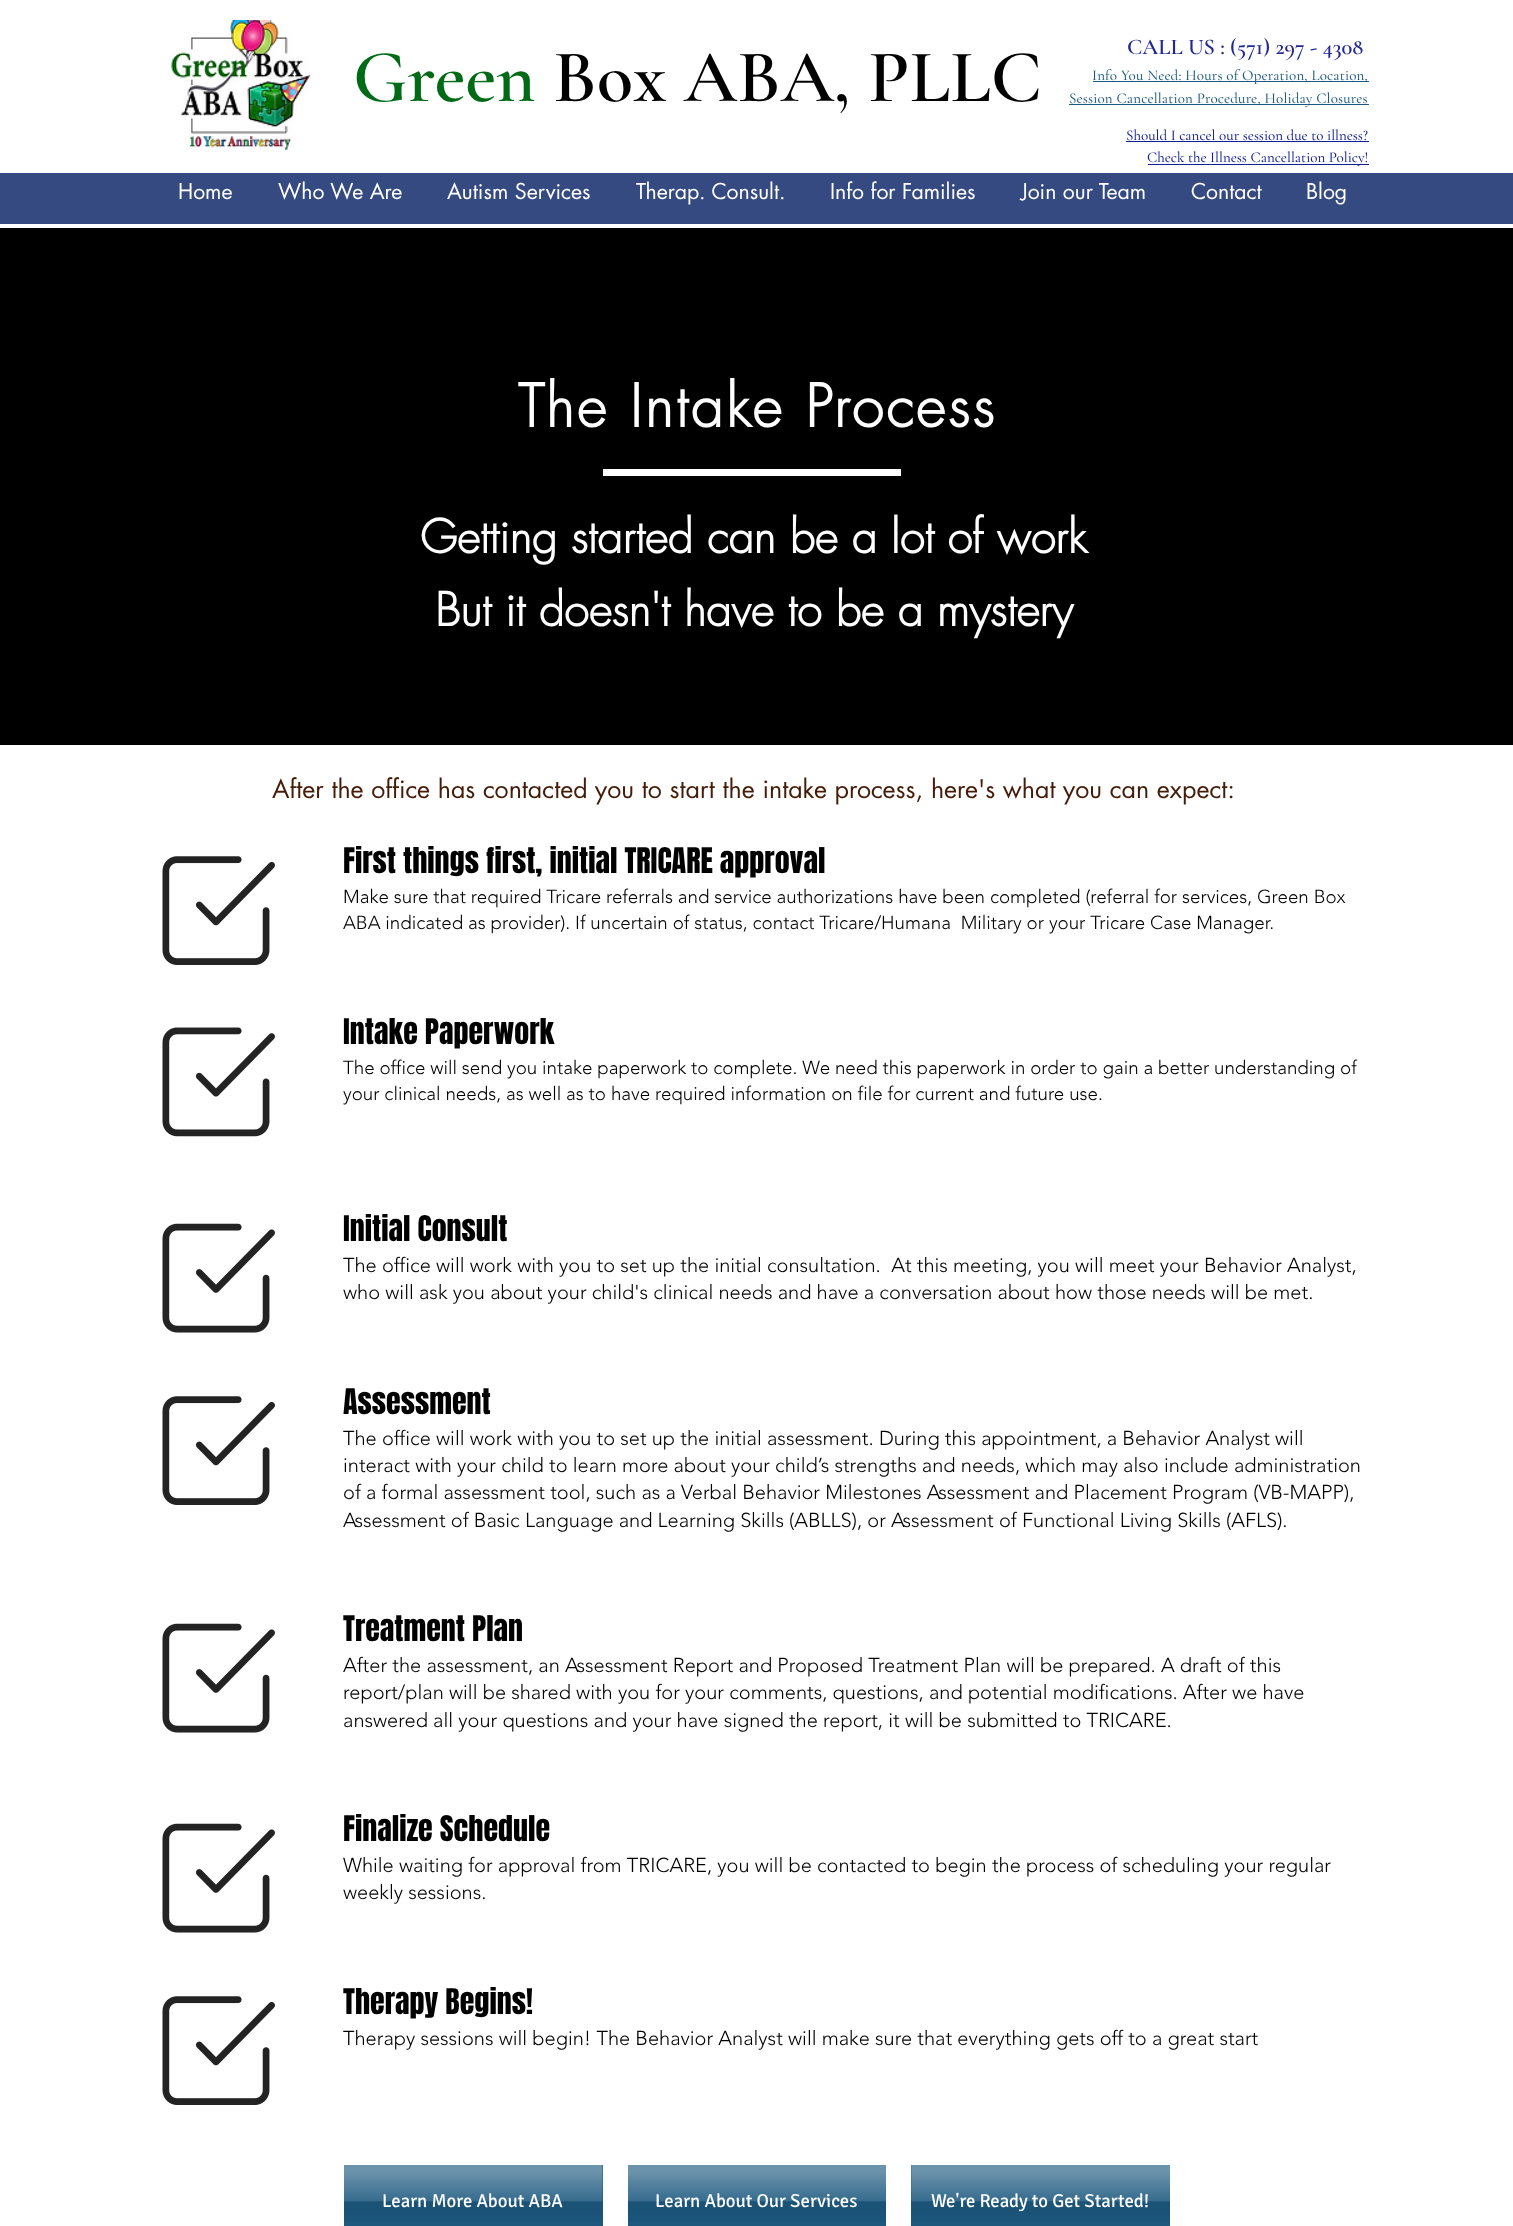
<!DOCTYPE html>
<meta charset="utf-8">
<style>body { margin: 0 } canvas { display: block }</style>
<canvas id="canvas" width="1513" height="2226"></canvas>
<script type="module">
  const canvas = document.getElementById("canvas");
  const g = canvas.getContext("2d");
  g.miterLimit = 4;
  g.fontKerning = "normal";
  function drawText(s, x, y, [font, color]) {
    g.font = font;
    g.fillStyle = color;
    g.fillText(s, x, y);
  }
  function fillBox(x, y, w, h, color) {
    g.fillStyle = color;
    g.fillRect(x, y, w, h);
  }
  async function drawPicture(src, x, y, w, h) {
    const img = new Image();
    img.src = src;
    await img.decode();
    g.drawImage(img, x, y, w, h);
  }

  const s1 = ["600 22.5px Cormorant Garamond", "#212794"];
  const s2 = ["600 75px Cormorant Garamond", "#006B17"];
  const s3 = ["600 75px Cormorant Garamond", "#000000"];
  const s4 = ["500 15px Cormorant Garamond", "#1D597F"];
  const s5 = ["500 15px Cormorant Garamond", "#142092"];
  const s6 = ["21.25px futura", "#FFFFFF"];
  const s7 = ["bold 57.5px futura", "#FFFFFF"];
  const s8 = ["bold 45px futura", "#FFFFFF"];
  const s9 = ["25px futura", "#441C08"];
  const s10 = ["30px Anton", "#000000"];
  const s11 = ["300 18.75px 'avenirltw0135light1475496'", "#000000"];
  const s12 = ["300 20px 'avenirltw0135light1475496'", "#000000"];
  const s13 = ["18.75px Signika", "#FFFFFF"];

  fillBox(0, 0, 1513, 2226, "#FFFFFF");
  await drawPicture("pic1.png", 169, 20, 142, 130);
  drawText("CALL US : (571) 297 - 4308", 1127, 54, s1);
  drawText("Green", 353, 101, s2);
  drawText("Box ABA, PLLC", 553, 101, s3);
  fillBox(1093, 81, 276, 1, "#1D597F");
  g.letterSpacing = "0.15px";
  drawText("Info You Need: Hours of Operation, Location,", 1092, 80, s4);
  fillBox(1069, 104, 300, 1, "#1D597F");
  drawText("Session Cancellation Procedure, Holiday Closures", 1069, 103, s4);
  g.letterSpacing = "0px";
  drawText("Should I cancel our session due to illness?", 1126, 140, s5);
  fillBox(1126, 141, 243, 1, "#142092");
  fillBox(1148, 164, 221, 1, "#142092");
  drawText("Check the Illness Cancellation Policy!", 1147, 162, s5);
  fillBox(0, 173, 1513, 51, "#354A81");
  drawText("Home", 178, 199, s6);
  drawText("Who We Are", 278, 199, s6);
  drawText("Autism Services", 447, 199, s6);
  drawText("Therap. Consult.", 636, 199, s6);
  drawText("Info for Families", 830, 199, s6);
  drawText("Join our Team", 1021, 199, s6);
  drawText("Contact", 1191, 199, s6);
  drawText("Blog", 1306, 199, s6);
  fillBox(0, 228, 1513, 517, "#000000");
  g.letterSpacing = "2.9px";
  drawText("The Intake Process", 518, 427, s7);
  fillBox(603, 469, 298, 7, "#FFFFFF");
  g.letterSpacing = "0px";
  drawText("Getting started can be a lot of work", 420, 553, s8);
  drawText("But it doesn't have to be a mystery", 435, 626, s8);
  drawText("After the office has contacted you to start the intake process, here's what you can expect:", 272, 798, s9);
  await drawPicture("pic2.png", 162, 856, 113, 109);
  drawText("First things first, initial TRICARE approval", 343, 873, s10);
  drawText("Make sure that required Tricare referrals and service authorizations have been completed (referral for services, Green Box", 343, 903, s11);
  drawText("ABA indicated as provider). If uncertain of status, contact Tricare/Humana  Military or your Tricare Case Manager.", 343, 929, s11);
  await drawPicture("pic3.png", 162, 1027, 113, 110);
  drawText("Intake Paperwork", 343, 1044, s10);
  drawText("The office will send you intake paperwork to complete. We need this paperwork in order to gain a better understanding of", 343, 1074, s11);
  drawText("your clinical needs, as well as to have required information on file for current and future use.", 343, 1100, s11);
  await drawPicture("pic4.png", 162, 1223, 113, 110);
  drawText("Initial Consult", 343, 1241, s10);
  drawText("The office will work with you to set up the initial consultation.  At this meeting, you will meet your Behavior Analyst,", 343, 1272, s12);
  drawText("who will ask you about your child's clinical needs and have a conversation about how those needs will be met.", 343, 1299, s12);
  await drawPicture("pic2.png", 162, 1396, 113, 109);
  drawText("Assessment", 343, 1414, s10);
  drawText("The office will work with you to set up the initial assessment. During this appointment, a Behavior Analyst will", 343, 1445, s12);
  drawText("interact with your child to learn more about your child’s strengths and needs, which may also include administration", 343, 1472, s12);
  drawText("of a formal assessment tool, such as a Verbal Behavior Milestones Assessment and Placement Program (VB-MAPP),", 343, 1499, s12);
  drawText("Assessment of Basic Language and Learning Skills (ABLLS), or Assessment of Functional Living Skills (AFLS).", 343, 1527, s12);
  await drawPicture("pic4.png", 162, 1623, 113, 110);
  drawText("Treatment Plan", 343, 1641, s10);
  drawText("After the assessment, an Assessment Report and Proposed Treatment Plan will be prepared. A draft of this", 343, 1672, s12);
  drawText("report/plan will be shared with you for your comments, questions, and potential modifications. After we have", 343, 1699, s12);
  drawText("answered all your questions and your have signed the report, it will be submitted to TRICARE.", 343, 1727, s12);
  await drawPicture("pic4.png", 162, 1823, 113, 110);
  drawText("Finalize Schedule", 343, 1841, s10);
  drawText("While waiting for approval from TRICARE, you will be contacted to begin the process of scheduling your regular", 343, 1872, s12);
  drawText("weekly sessions.", 343, 1899, s12);
  await drawPicture("pic2.png", 162, 1996, 113, 109);
  drawText("Therapy Begins!", 343, 2014, s10);
  drawText("Therapy sessions will begin! The Behavior Analyst will make sure that everything gets off to a great start", 343, 2045, s12);
  fillBox(344, 2165, 259, 61, "#1D597F");
  await drawPicture("pic5.png", 344, 2165, 259, 57);
  drawText("Learn More About ABA", 382, 2207, s13);
  fillBox(628, 2165, 258, 61, "#1D597F");
  await drawPicture("pic6.png", 627, 2165, 259, 57);
  drawText("Learn About Our Services", 655, 2207, s13);
  fillBox(911, 2165, 259, 61, "#1D597F");
  await drawPicture("pic7.png", 911, 2165, 259, 57);
  drawText("We're Ready to Get Started!", 931, 2207, s13);
</script>
